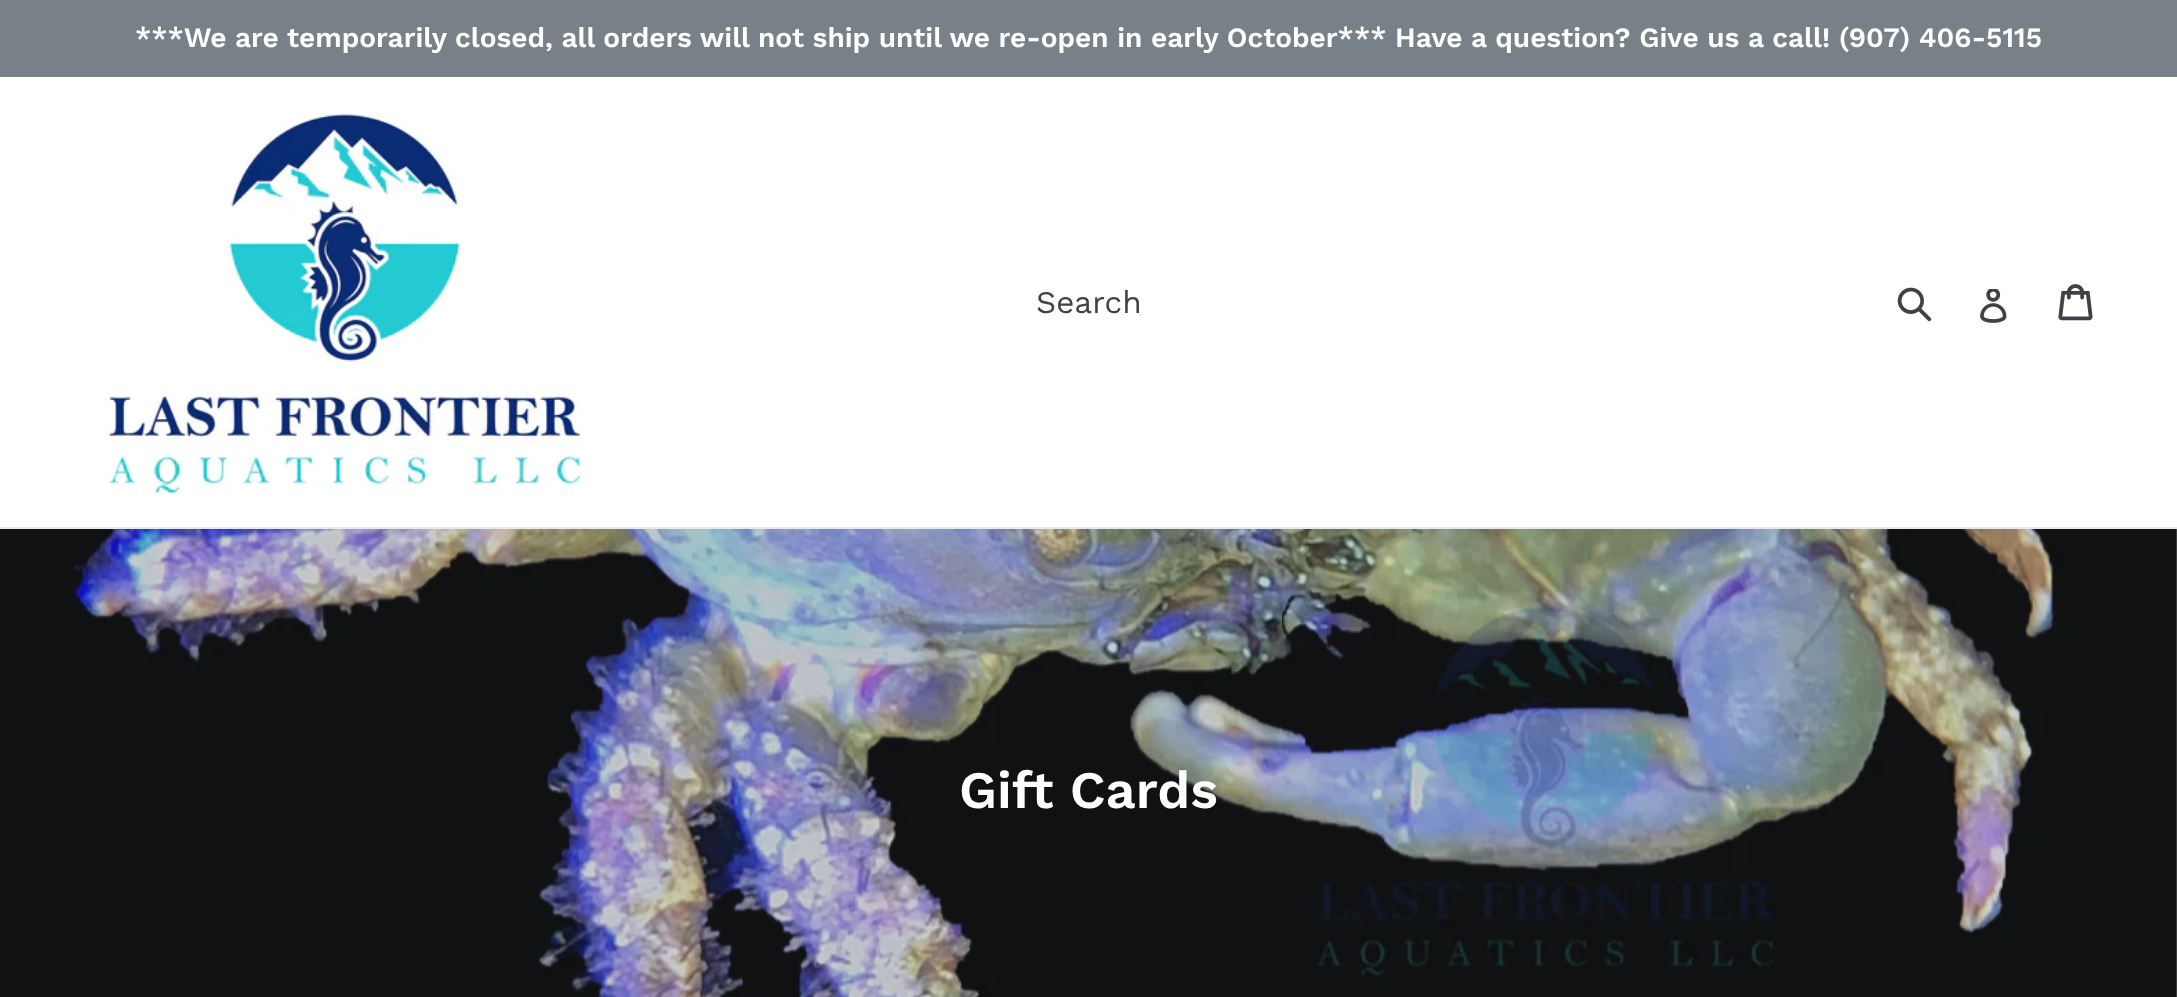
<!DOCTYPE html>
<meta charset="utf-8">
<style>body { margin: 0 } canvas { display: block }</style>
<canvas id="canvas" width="2177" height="997"></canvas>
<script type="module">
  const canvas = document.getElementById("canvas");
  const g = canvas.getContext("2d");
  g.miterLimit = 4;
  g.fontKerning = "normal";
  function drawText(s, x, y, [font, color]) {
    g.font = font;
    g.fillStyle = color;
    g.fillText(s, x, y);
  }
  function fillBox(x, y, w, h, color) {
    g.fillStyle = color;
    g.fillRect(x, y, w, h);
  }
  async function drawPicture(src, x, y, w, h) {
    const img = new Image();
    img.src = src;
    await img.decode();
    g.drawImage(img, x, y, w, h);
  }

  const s1 = ["600 28px Work Sans", "#FFFFFF"];
  const s2 = ["31.5px Work Sans", "#3D4246"];
  const s3 = ["600 52.5px Work Sans", "#FFFFFF"];

  fillBox(0, 0, 2177, 997, "#FFFFFF");
  fillBox(0, 0, 2177, 77, "#788188");
  drawText("***We are temporarily closed, all orders will not ship until we re-open in early October*** Have a question? Give us a call! (907) 406-5115", 135, 47, s1);
  fillBox(0, 527, 2177, 2, "#E8E9EB");
  await drawPicture("pic1.png", 107, 113, 475, 387);
  drawText("Search", 1036, 313, s2);
  await drawPicture("pic2.png", 1897, 287, 35, 35);
  await drawPicture("pic3.png", 1980, 289, 27, 34);
  await drawPicture("pic4.png", 2058, 284, 35, 37);
  await drawPicture("pic5.png", 0, 529, 2177, 468);
  drawText("Gift Cards", 959, 808, s3);
</script>
